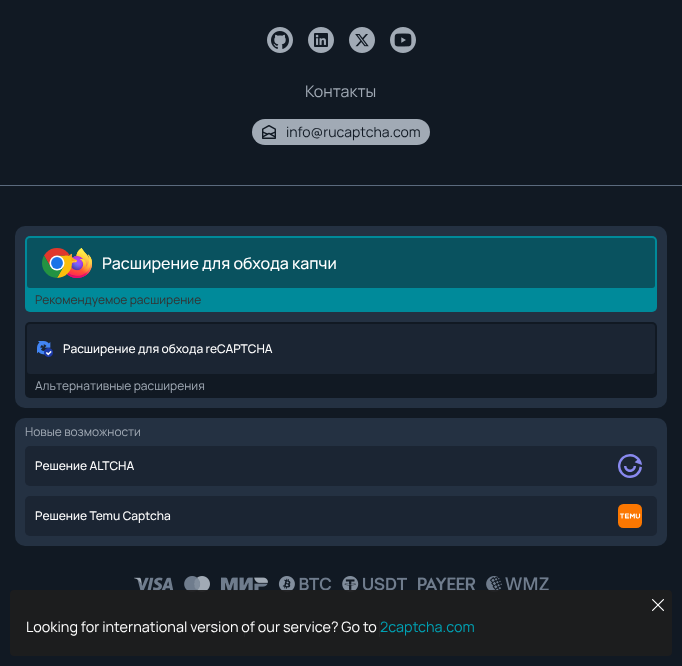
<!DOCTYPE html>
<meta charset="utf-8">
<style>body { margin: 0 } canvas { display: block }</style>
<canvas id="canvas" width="682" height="666"></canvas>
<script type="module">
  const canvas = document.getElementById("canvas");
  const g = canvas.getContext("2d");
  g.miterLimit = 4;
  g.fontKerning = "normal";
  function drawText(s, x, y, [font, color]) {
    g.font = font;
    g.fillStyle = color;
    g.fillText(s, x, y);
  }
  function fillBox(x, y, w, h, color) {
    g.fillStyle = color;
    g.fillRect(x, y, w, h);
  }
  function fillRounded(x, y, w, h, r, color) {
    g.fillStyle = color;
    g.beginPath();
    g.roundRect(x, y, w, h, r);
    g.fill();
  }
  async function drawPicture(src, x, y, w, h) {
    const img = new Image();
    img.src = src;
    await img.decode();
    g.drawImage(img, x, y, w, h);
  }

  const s1 = ["16px Manrope", "#A1AAB5"];
  const s2 = ["14px Manrope", "#111923"];
  const s3 = ["500 16px Manrope", "#FFFFFF"];
  const s4 = ["12px Manrope", "#333333"];
  const s5 = ["500 12px Manrope", "#FFFFFF"];
  const s6 = ["12px Manrope", "#A1AAB5"];
  const s7 = ["14.4px Manrope", "#FFFFFF"];
  const s8 = ["14.4px Manrope", "#00A1B3"];

  fillBox(0, 0, 682, 666, "#111923");
  await drawPicture("pic1.png", 267, 27, 26, 26);
  await drawPicture("pic2.png", 308, 27, 26, 26);
  await drawPicture("pic3.png", 349, 27, 26, 26);
  await drawPicture("pic4.png", 390, 27, 26, 26);
  drawText("Контакты", 305, 97, s1);
  fillRounded(252, 119, 178, 26, 13, "#A1AAB5");
  await drawPicture("pic5.png", 262, 125, 14, 14);
  drawText("info@rucaptcha.com", 286, 137, s2);
  fillBox(0, 185, 682, 1, "#5B6A7D");
  fillRounded(15, 226, 652, 182, 10, "#243142");
  fillRounded(25, 236, 632, 76, 5, "#008A9A");
  fillRounded(27, 238, 628, 50, 3, "#09525F");
  await drawPicture("pic6.png", 42, 248, 50, 30);
  drawText("Расширение для обхода капчи", 102, 269, s3);
  drawText("Рекомендуемое расширение", 35, 304, s4);
  fillRounded(25, 322, 632, 76, 5, "#111923");
  fillRounded(27, 324, 628, 50, 3, "#1B2533");
  await drawPicture("pic7.png", 37, 341, 16, 16);
  drawText("Расширение для обхода reCAPTCHA", 63, 353, s5);
  drawText("Альтернативные расширения", 35, 390, s6);
  fillRounded(15, 418, 652, 128, 10, "#243142");
  drawText("Новые возможности", 25, 436, s6);
  fillRounded(25, 446, 632, 40, 5, "#1B2533");
  drawText("Решение ALTCHA", 35, 470, s5);
  await drawPicture("pic8.png", 618, 454, 24, 24);
  fillRounded(25, 496, 632, 40, 5, "#1B2533");
  drawText("Решение Temu Captcha", 35, 520, s5);
  await drawPicture("pic9.png", 618, 504, 24, 24);
  await drawPicture("pic10.png", 134, 576, 415, 16);
  fillRounded(244, 621, 1, 16, 0.5, "#A1AAB5");
  fillRounded(379, 621, 1, 16, 0.5, "#A1AAB5");
  fillRounded(10, 590, 662, 66, 4, "rgba(29, 30, 31, 0.95)");
  await drawPicture("pic11.png", 652, 599, 12, 12);
  drawText("Looking for international version of our service? Go to", 26, 632, s7);
  drawText("2captcha.com", 380, 632, s8);
</script>
